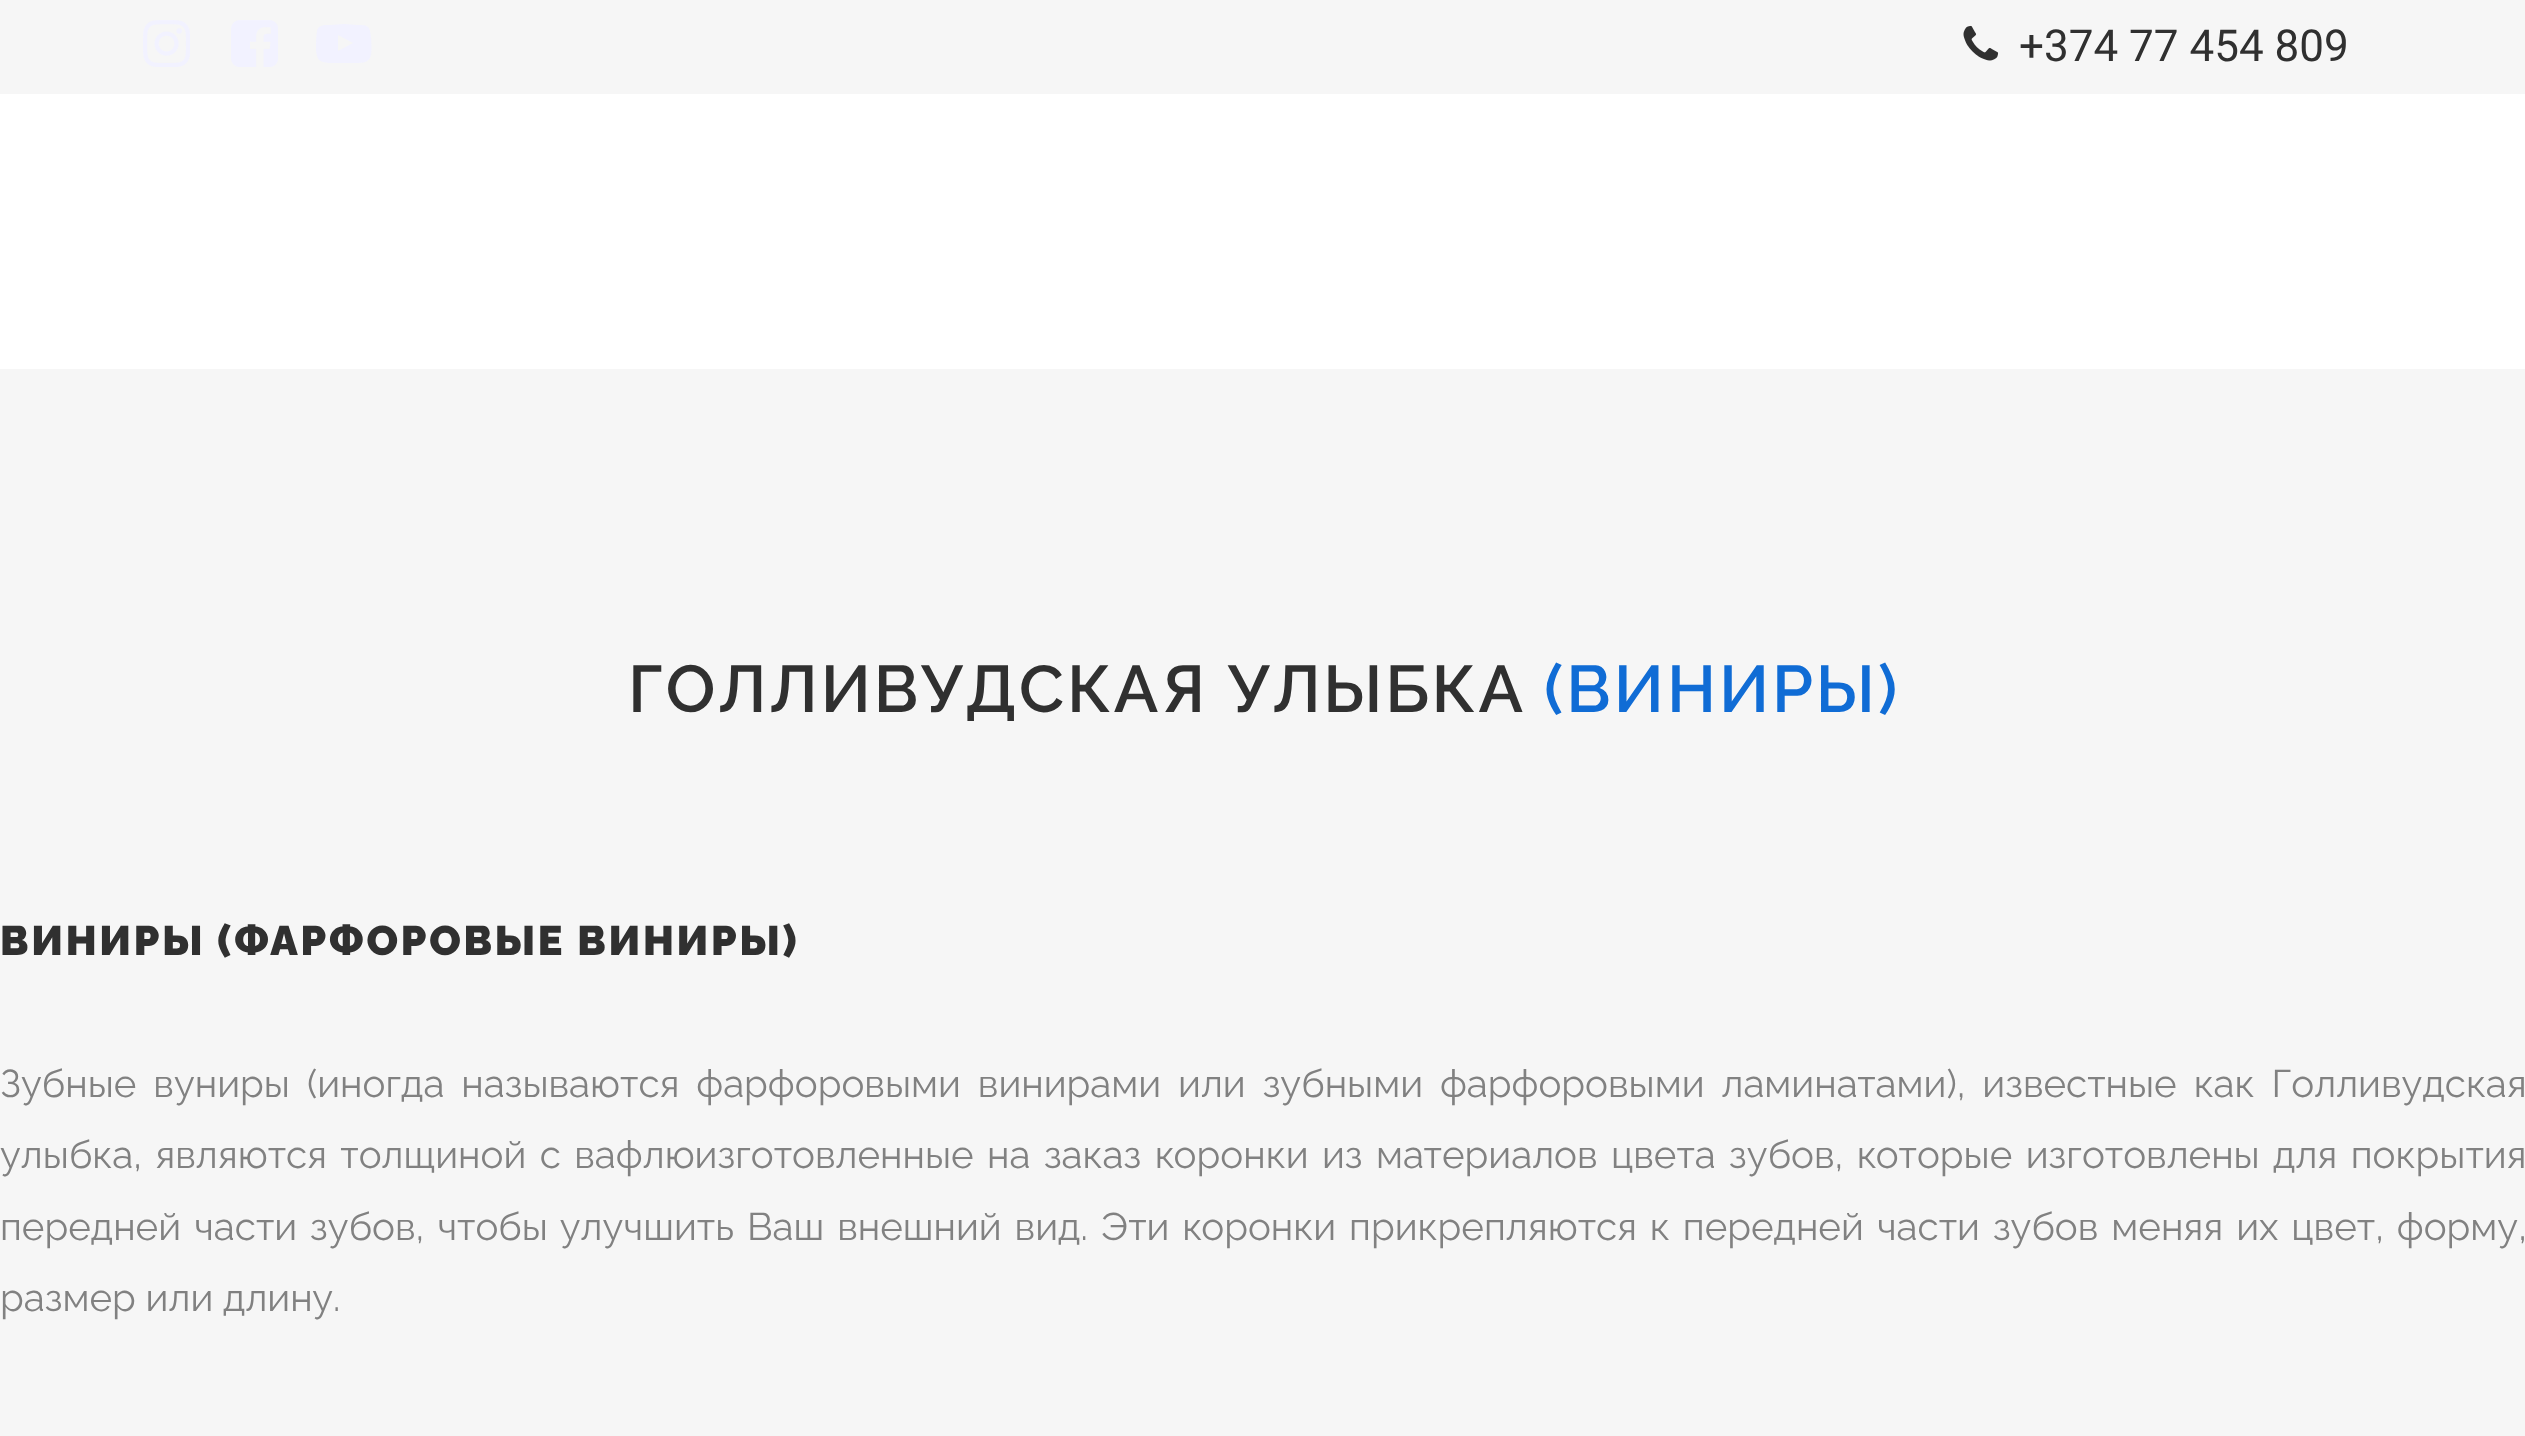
<!DOCTYPE html>
<meta charset="utf-8">
<style>body { margin: 0 } canvas { display: block }</style>
<canvas id="canvas" width="2525" height="1436"></canvas>
<script type="module">
  const canvas = document.getElementById("canvas");
  const g = canvas.getContext("2d");
  g.miterLimit = 4;
  g.fontKerning = "normal";
  function drawText(s, x, y, [font, color]) {
    g.font = font;
    g.fillStyle = color;
    g.fillText(s, x, y);
  }
  function fillBox(x, y, w, h, color) {
    g.fillStyle = color;
    g.fillRect(x, y, w, h);
  }
  async function drawPicture(src, x, y, w, h) {
    const img = new Image();
    img.src = src;
    await img.decode();
    g.drawImage(img, x, y, w, h);
  }

  const s1 = ["44px Roboto", "#303030"];
  const s2 = ["600 66px Raleway", "#303030"];
  const s3 = ["600 66px Raleway", "#106CD5"];
  const s4 = ["900 41.25px Raleway", "#303030"];
  const s5 = ["38.5px Raleway", "#818181"];

  fillBox(0, 0, 2525, 1436, "#F6F6F6");
  await drawPicture("pic1.png", 143, 20, 47, 47);
  await drawPicture("pic2.png", 231, 20, 47, 47);
  g.fillStyle = "#F2F2FF";
  g.beginPath();
  g.moveTo(338, 51);
  g.lineTo(338, 35);
  g.lineTo(353, 43);
  g.closePath();
  g.moveTo(344, 24);
  g.lineTo(330, 25);
  g.bezierCurveTo(324, 25, 318, 25, 317, 31);
  g.bezierCurveTo(316, 37, 316, 44, 316, 50);
  g.bezierCurveTo(317, 60, 319, 62, 329, 63);
  g.lineTo(344, 63);
  g.bezierCurveTo(370, 63, 373, 65, 371, 37);
  g.bezierCurveTo(370, 26, 368, 25, 358, 25);
  g.closePath();
  g.fill();
  await drawPicture("pic3.png", 1963, 25, 36, 36);
  drawText("+374 77 454 809", 2019, 61, s1);
  fillBox(0, 94, 2525, 275, "#FFFFFF");
  g.letterSpacing = "2.75px";
  g.wordSpacing = "1px";
  drawText("ГОЛЛИВУДСКАЯ УЛЫБКА", 628, 712, s2);
  g.wordSpacing = "0px";
  drawText("(ВИНИРЫ)", 1544, 712, s3);
  drawText("ВИНИРЫ (ФАРФОРОВЫЕ ВИНИРЫ)", 0, 955, s4);
  g.letterSpacing = "0px";
  g.wordSpacing = "7.1px";
  drawText("Зубные вуниры (иногда называются фарфоровыми винирами или зубными фарфоровыми ламинатами), известные как Голливудская", 0, 1097, s5);
  g.wordSpacing = "3.6px";
  drawText("улыбка, являются толщиной с вафлюизготовленные на заказ коронки из материалов цвета зубов, которые изготовлены для покрытия", 0, 1168, s5);
  g.wordSpacing = "3.1px";
  drawText("передней части зубов, чтобы улучшить Ваш внешний вид. Эти коронки прикрепляются к передней части зубов меняя их цвет, форму,", 0, 1240, s5);
  g.wordSpacing = "0px";
  drawText("размер или длину.", 0, 1311, s5);
</script>
